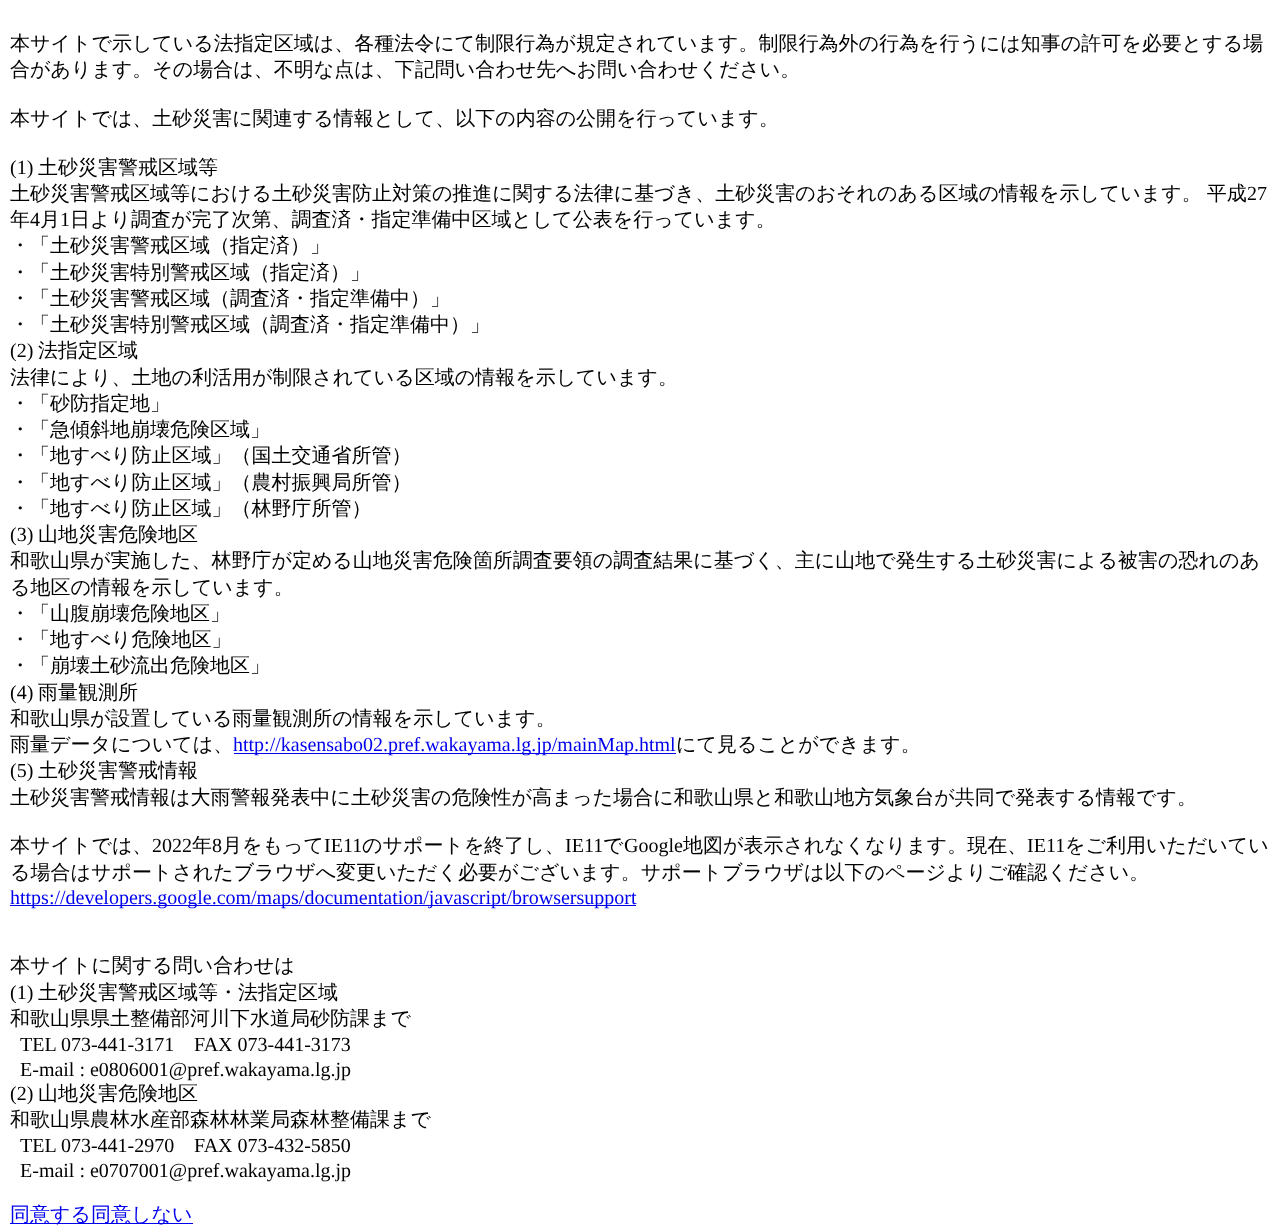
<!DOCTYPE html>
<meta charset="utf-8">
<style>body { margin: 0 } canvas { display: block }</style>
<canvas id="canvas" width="1287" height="1229"></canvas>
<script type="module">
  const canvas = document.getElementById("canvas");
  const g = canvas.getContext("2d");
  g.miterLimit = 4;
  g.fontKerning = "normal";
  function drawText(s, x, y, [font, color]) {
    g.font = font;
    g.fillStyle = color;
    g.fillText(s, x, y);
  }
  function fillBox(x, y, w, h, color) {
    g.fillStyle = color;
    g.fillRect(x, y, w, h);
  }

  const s1 = ["500 20px WenQuanYi Zen Hei", "#000000"];
  const s2 = ["20px Liberation Serif", "#000000"];
  const s3 = ["20px Liberation Serif", "#0000EE"];
  const s4 = ["500 20px WenQuanYi Zen Hei", "#0000EE"];

  fillBox(0, 0, 1287, 1229, "#FFFFFF");
  drawText("本サイトで示している法指定区域は、各種法令にて制限行為が規定されています。制限行為外の行為を行うには知事の許可を必要とする場", 10, 50, s1);
  drawText("合があります。その場合は、不明な点は、下記問い合わせ先へお問い合わせください。", 10, 76, s1);
  drawText("本サイトでは、土砂災害に関連する情報として、以下の内容の公開を行っています。", 10, 125, s1);
  drawText("(1)", 10, 174, s2);
  drawText("土砂災害警戒区域等", 38, 174, s1);
  g.wordSpacing = "-1px";
  drawText("土砂災害警戒区域等における土砂災害防止対策の推進に関する法律に基づき、土砂災害のおそれのある区域の情報を示しています。 平成", 10, 200, s1);
  g.wordSpacing = "0px";
  drawText("27", 1247, 200, s2);
  drawText("年", 10, 226, s1);
  drawText("4", 30, 226, s2);
  drawText("月", 40, 226, s1);
  drawText("1", 60, 226, s2);
  drawText("日より調査が完了次第、調査済・指定準備中区域として公表を行っています。", 70, 226, s1);
  drawText("・「土砂災害警戒区域（指定済）」", 10, 252, s1);
  drawText("・「土砂災害特別警戒区域（指定済）」", 10, 279, s1);
  drawText("・「土砂災害警戒区域（調査済・指定準備中）」", 10, 305, s1);
  drawText("・「土砂災害特別警戒区域（調査済・指定準備中）」", 10, 331, s1);
  drawText("(2)", 10, 357, s2);
  drawText("法指定区域", 38, 357, s1);
  drawText("法律により、土地の利活用が制限されている区域の情報を示しています。", 10, 384, s1);
  drawText("・「砂防指定地」", 10, 410, s1);
  drawText("・「急傾斜地崩壊危険区域」", 10, 436, s1);
  drawText("・「地すべり防止区域」（国土交通省所管）", 10, 462, s1);
  drawText("・「地すべり防止区域」（農村振興局所管）", 10, 489, s1);
  drawText("・「地すべり防止区域」（林野庁所管）", 10, 515, s1);
  drawText("(3)", 10, 541, s2);
  drawText("山地災害危険地区", 38, 541, s1);
  drawText("和歌山県が実施した、林野庁が定める山地災害危険箇所調査要領の調査結果に基づく、主に山地で発生する土砂災害による被害の恐れのあ", 10, 567, s1);
  drawText("る地区の情報を示しています。", 10, 594, s1);
  drawText("・「山腹崩壊危険地区」", 10, 620, s1);
  drawText("・「地すべり危険地区」", 10, 646, s1);
  drawText("・「崩壊土砂流出危険地区」", 10, 672, s1);
  drawText("(4)", 10, 699, s2);
  drawText("雨量観測所", 38, 699, s1);
  drawText("和歌山県が設置している雨量観測所の情報を示しています。", 10, 725, s1);
  drawText("雨量データについては、", 10, 751, s1);
  fillBox(234, 753, 442, 1, "#0000EE");
  drawText("http://kasensabo02.pref.wakayama.lg.jp/mainMap.html", 233, 751, s3);
  drawText("にて見ることができます。", 676, 751, s1);
  drawText("(5)", 10, 777, s2);
  drawText("土砂災害警戒情報", 38, 777, s1);
  drawText("土砂災害警戒情報は大雨警報発表中に土砂災害の危険性が高まった場合に和歌山県と和歌山地方気象台が共同で発表する情報です。", 10, 804, s1);
  drawText("本サイトでは、", 10, 852, s1);
  drawText("2022", 152, 852, s2);
  drawText("年", 192, 852, s1);
  drawText("8", 212, 852, s2);
  drawText("月をもって", 222, 852, s1);
  drawText("IE11", 324, 852, s2);
  drawText("のサポートを終了し、", 362, 852, s1);
  drawText("IE11", 565, 852, s2);
  drawText("で", 603, 852, s1);
  drawText("Google", 624, 852, s2);
  drawText("地図が表示されなくなります。現在、", 683, 852, s1);
  drawText("IE11", 1027, 852, s2);
  drawText("をご利用いただいてい", 1065, 852, s1);
  drawText("る場合はサポートされたブラウザへ変更いただく必要がございます。サポートブラウザは以下のページよりご確認ください。", 10, 879, s1);
  fillBox(10, 905, 626, 1, "#0000EE");
  drawText("https://developers.google.com/maps/documentation/javascript/browsersupport", 10, 904, s3);
  drawText("本サイトに関する問い合わせは", 10, 972, s1);
  drawText("(1)", 10, 999, s2);
  drawText("土砂災害警戒区域等・法指定区域", 38, 999, s1);
  drawText("和歌山県県土整備部河川下水道局砂防課まで", 10, 1025, s1);
  drawText("TEL 073-441-3171", 20, 1051, s2);
  drawText("FAX 073-441-3173", 194, 1051, s2);
  drawText("E-mail : e0806001@pref.wakayama.lg.jp", 20, 1076, s2);
  drawText("(2)", 10, 1100, s2);
  drawText("山地災害危険地区", 38, 1100, s1);
  drawText("和歌山県農林水産部森林林業局森林整備課まで", 10, 1126, s1);
  drawText("TEL 073-441-2970", 20, 1152, s2);
  drawText("FAX 073-432-5850", 194, 1152, s2);
  drawText("E-mail : e0707001@pref.wakayama.lg.jp", 20, 1177, s2);
  fillBox(10, 1223, 183, 1, "#0000EE");
  drawText("同意する同意しない", 10, 1221, s4);
</script>
